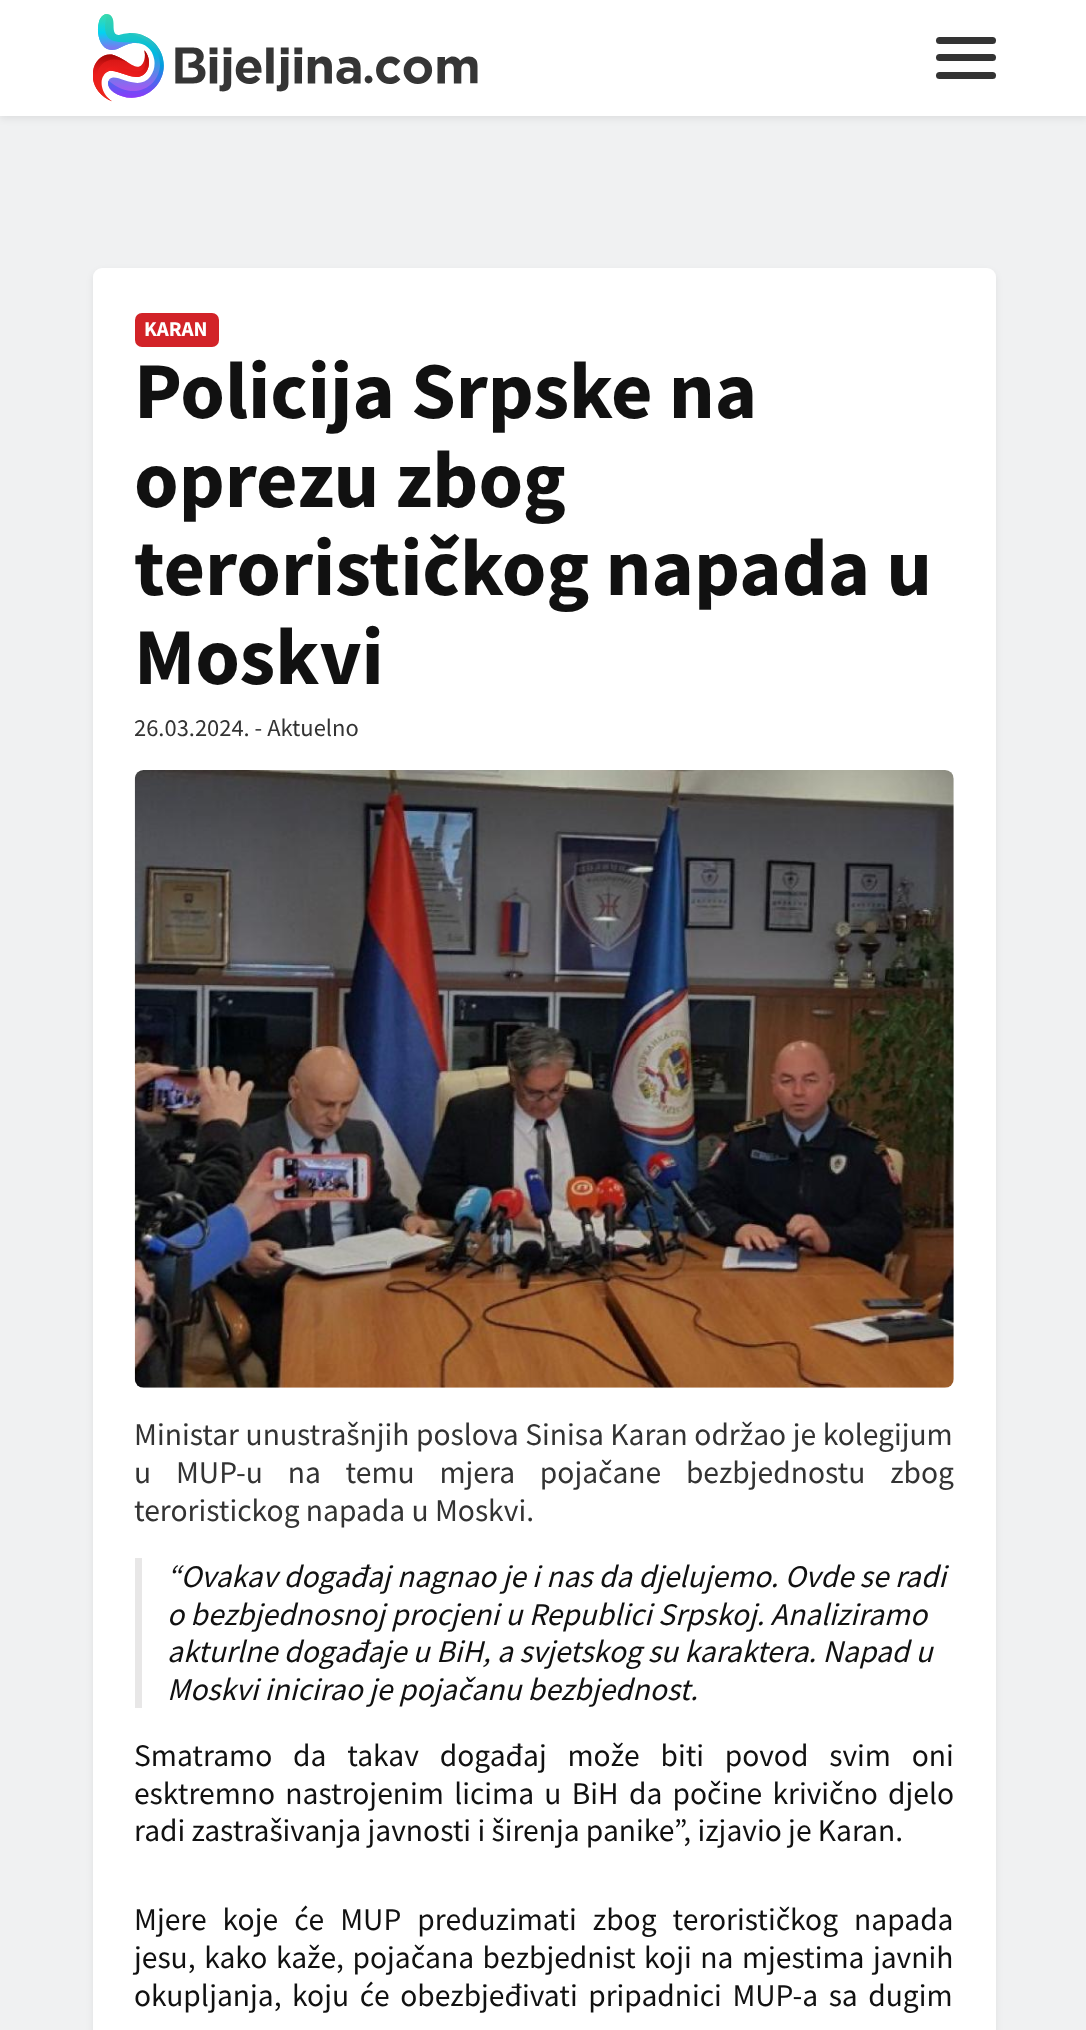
<!DOCTYPE html>
<meta charset="utf-8">
<style>body { margin: 0 } canvas { display: block }</style>
<canvas id="canvas" width="1086" height="2030"></canvas>
<script type="module">
  const canvas = document.getElementById("canvas");
  const g = canvas.getContext("2d");
  g.miterLimit = 4;
  g.fontKerning = "normal";
  function drawText(s, x, y, [font, color]) {
    g.font = font;
    g.fillStyle = color;
    g.fillText(s, x, y);
  }
  function fillBox(x, y, w, h, color) {
    g.fillStyle = color;
    g.fillRect(x, y, w, h);
  }
  function fillRounded(x, y, w, h, r, color) {
    g.fillStyle = color;
    g.beginPath();
    g.roundRect(x, y, w, h, r);
    g.fill();
  }
  async function drawPicture(src, x, y, w, h) {
    const img = new Image();
    img.src = src;
    await img.decode();
    g.drawImage(img, x, y, w, h);
  }

  const s1 = ["bold 21px Source Sans Pro", "#FFFFFF"];
  const s2 = ["bold 80.5px Source Sans Pro", "#111111"];
  const s3 = ["24.5px Source Sans Pro", "#333333"];
  const s4 = ["31.5px Source Sans Pro", "#333333"];
  const s5 = ["italic 31.5px Source Sans Pro", "#111111"];
  const s6 = ["31.5px Source Sans Pro", "#111111"];

  fillBox(0, 0, 1086, 2030, "#F0F1F2");
  g.fillStyle = "rgba(0, 0, 0, 0.07)";
  g.filter = "blur(3.5px)";
  g.beginPath();
  g.rect(0, 4, 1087, 115);
  g.fill();
  g.filter = "none";
  fillBox(0, 0, 1086, 116, "#FFFFFF");
  await drawPicture("pic1.png", 93, 14, 385, 88);
  fillRounded(936, 37, 60, 7, 3.5, "#333333");
  fillRounded(936, 54, 60, 7, 3.5, "#333333");
  fillRounded(936, 72, 60, 7, 3.5, "#333333");
  g.fillStyle = "rgba(0, 0, 0, 0.07)";
  g.filter = "blur(3.5px)";
  g.beginPath();
  g.roundRect(93, 271, 903, 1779, 9);
  g.fill();
  g.filter = "none";
  fillRounded(93, 268, 903, 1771, 9, "#FFFFFF");
  fillRounded(135, 313, 84, 34, 7, "#D22328");
  drawText("KARAN", 144, 336, s1);
  drawText("Policija Srpske na", 134, 418, s2);
  drawText("oprezu zbog", 134, 507, s2);
  drawText("terorističkog napada u", 134, 595, s2);
  drawText("Moskvi", 134, 684, s2);
  drawText("26.03.2024. - Aktuelno", 134, 736, s3);
  await drawPicture("pic2.png", 134, 770, 820, 618);
  g.wordSpacing = "0.25px";
  drawText("Ministar unustrašnjih poslova Sinisa Karan održao je kolegijum", 134, 1445, s4);
  g.wordSpacing = "18.5px";
  drawText("u MUP-u na temu mjera pojačane bezbjednostu zbog", 134, 1483, s4);
  g.wordSpacing = "0px";
  drawText("teroristickog napada u Moskvi.", 134, 1521, s4);
  fillBox(135, 1558, 7, 150, "#E8E7E7");
  drawText("“Ovakav događaj nagnao je i nas da djelujemo. Ovde se radi", 167, 1587, s5);
  drawText("o bezbjednosnoj procjeni u Republici Srpskoj. Analiziramo", 167, 1625, s5);
  drawText("akturlne događaje u BiH, a svjetskog su karaktera. Napad u", 167, 1662, s5);
  drawText("Moskvi inicirao je pojačanu bezbjednost.", 167, 1700, s5);
  g.wordSpacing = "14.5px";
  drawText("Smatramo da takav događaj može biti povod svim oni", 134, 1766, s6);
  g.wordSpacing = "4px";
  drawText("esktremno nastrojenim licima u BiH da počine krivično djelo", 134, 1804, s6);
  g.wordSpacing = "0px";
  drawText("radi zastrašivanja javnosti i širenja panike”, izjavio je Karan.", 134, 1841, s6);
  g.wordSpacing = "9.75px";
  drawText("Mjere koje će MUP preduzimati zbog terorističkog napada", 134, 1930, s6);
  g.wordSpacing = "2.25px";
  drawText("jesu, kako kaže, pojačana bezbjednist koji na mjestima javnih", 134, 1968, s6);
  g.wordSpacing = "4.25px";
  drawText("okupljanja, koju će obezbjeđivati pripadnici MUP-a sa dugim", 134, 2006, s6);
</script>
